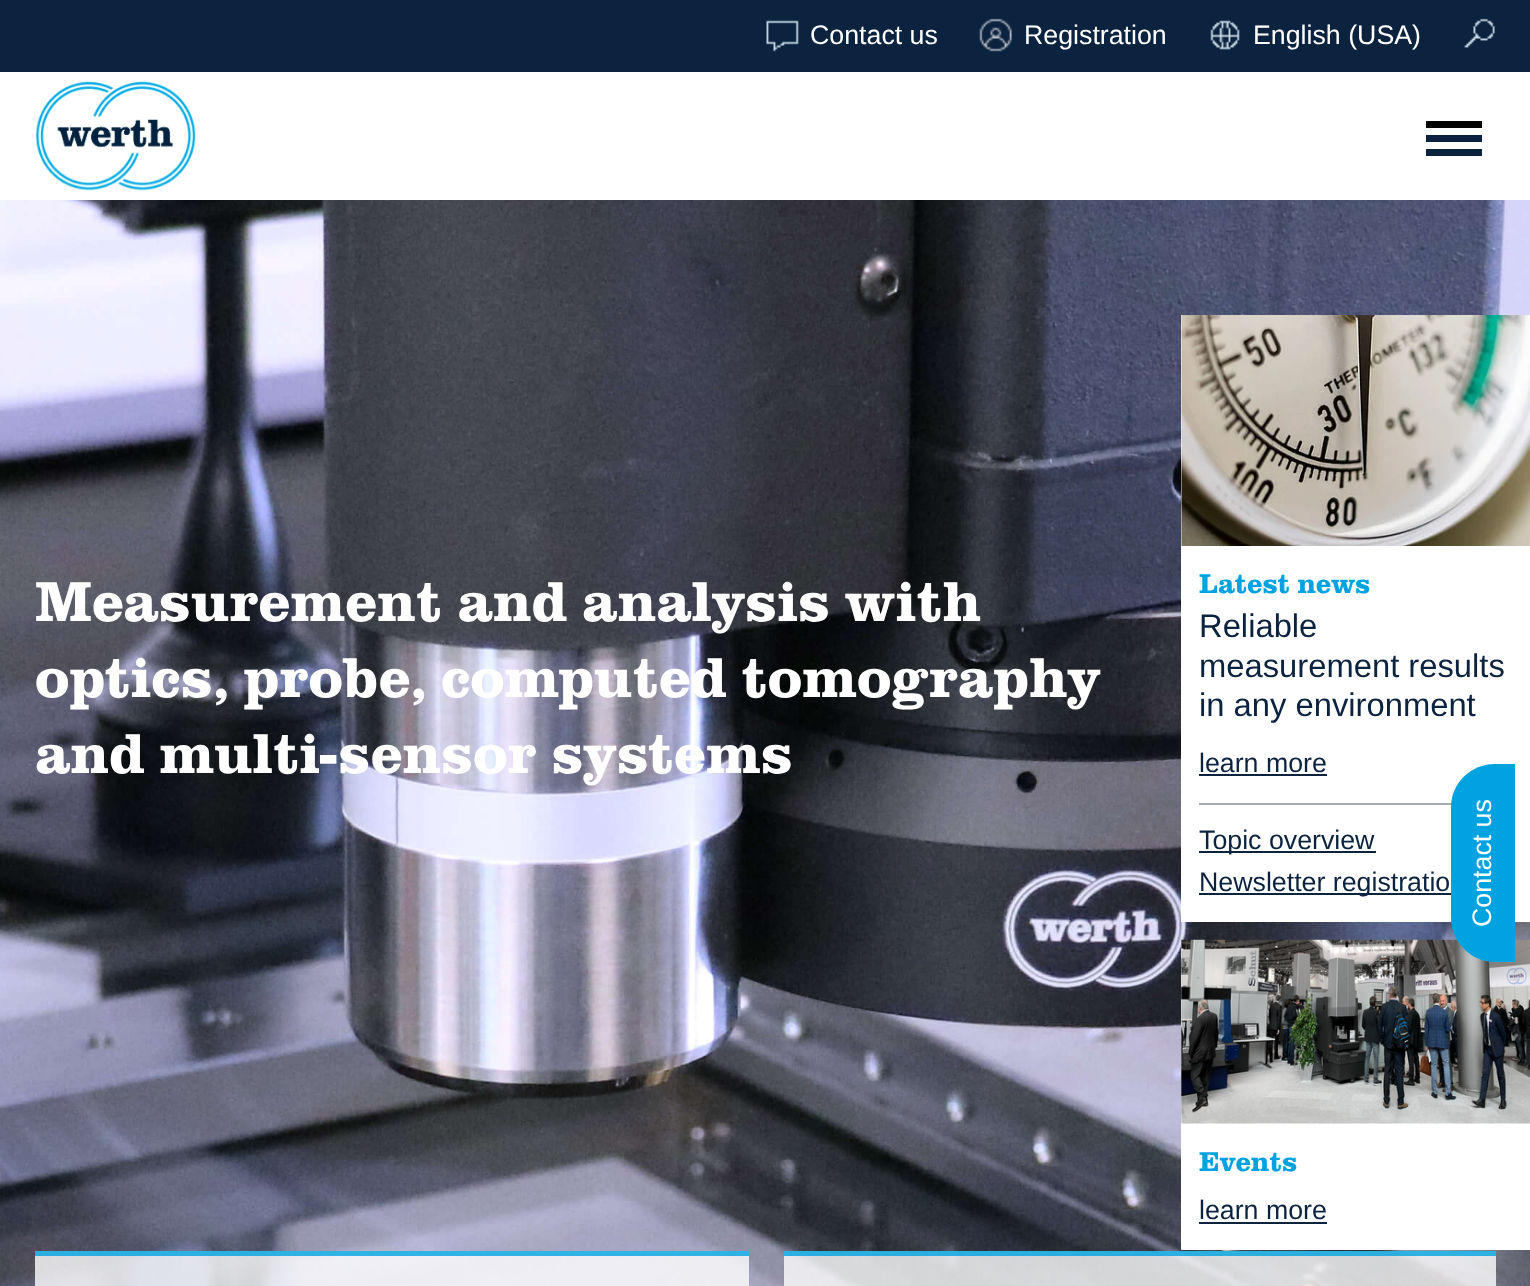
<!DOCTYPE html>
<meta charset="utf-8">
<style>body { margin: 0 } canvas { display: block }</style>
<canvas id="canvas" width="1530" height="1286"></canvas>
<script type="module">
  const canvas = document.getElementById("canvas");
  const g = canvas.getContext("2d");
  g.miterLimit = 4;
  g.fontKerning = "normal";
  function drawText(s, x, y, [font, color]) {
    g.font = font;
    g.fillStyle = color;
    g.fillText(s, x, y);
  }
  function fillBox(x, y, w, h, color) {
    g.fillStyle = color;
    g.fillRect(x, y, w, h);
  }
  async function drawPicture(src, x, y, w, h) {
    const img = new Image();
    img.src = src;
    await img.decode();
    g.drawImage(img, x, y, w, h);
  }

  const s1 = ["26.75px Liberation Sans", "#FFFFFF"];
  const s2 = ["bold 58.3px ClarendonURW", "#FFFFFF"];
  const s3 = ["bold 28px ClarendonURW", "#00A3E0"];
  const s4 = ["32.75px Liberation Sans", "#0C2340"];
  const s5 = ["26.75px Liberation Sans", "#0C2340"];

  fillBox(0, 0, 1530, 1286, "#FFFFFF");
  fillBox(0, 0, 1530, 72, "#0C2340");
  await drawPicture("pic1.png", 766, 20, 33, 32);
  drawText("Contact us", 810, 44, s1);
  await drawPicture("pic2.png", 979, 18, 33, 34);
  drawText("Registration", 1024, 44, s1);
  await drawPicture("pic3.png", 1210, 20, 30, 30);
  drawText("English (USA)", 1253, 44, s1);
  await drawPicture("pic4.png", 1464, 18, 31, 30);
  await drawPicture("pic5.png", 35, 81, 161, 110);
  fillBox(1426, 149, 56, 7, "#0C2340");
  fillBox(1426, 135, 56, 7, "#0C2340");
  fillBox(1426, 121, 56, 7, "#000000");
  await drawPicture("pic6.png", 0, 200, 1530, 1086);
  drawText("Measurement and analysis with", 35, 621, s2);
  drawText("optics, probe, computed tomography", 35, 697, s2);
  drawText("and multi-sensor systems", 35, 773, s2);
  fillBox(35, 1251, 714, 35, "rgba(255, 255, 255, 0.8)");
  fillBox(35, 1251, 714, 5, "rgba(0, 163, 224, 0.8)");
  fillBox(784, 1251, 712, 35, "rgba(255, 255, 255, 0.8)");
  fillBox(784, 1251, 712, 5, "rgba(0, 163, 224, 0.8)");
  fillBox(1181, 315, 349, 607, "#FFFFFF");
  await drawPicture("pic7.png", 1181, 315, 349, 231);
  drawText("Latest news", 1199, 593, s3);
  drawText("Reliable", 1199, 637, s4);
  drawText("measurement results", 1199, 677, s4);
  drawText("in any environment", 1199, 716, s4);
  drawText("learn more", 1199, 772, s5);
  fillBox(1199, 774, 128, 2, "#0C2340");
  fillBox(1199, 803, 253, 2, "#A5ACB2");
  fillBox(1199, 851, 177, 2, "#0C2340");
  drawText("Topic overview", 1199, 849, s5);
  fillBox(1199, 893, 252, 2, "#0C2340");
  drawText("Newsletter registratio", 1199, 891, s5);
  fillBox(1181, 940, 349, 310, "#FFFFFF");
  await drawPicture("pic8.png", 1181, 939, 349, 185);
  drawText("Events", 1199, 1171, s3);
  drawText("learn more", 1199, 1219, s5);
  fillBox(1199, 1222, 128, 2, "#0C2340");
  g.fillStyle = "#00A3E0";
  g.beginPath();
  g.moveTo(1451, 918);
  g.lineTo(1451, 807);
  g.bezierCurveTo(1451, 783, 1471, 764, 1495, 764);
  g.lineTo(1515, 764);
  g.lineTo(1515, 962);
  g.lineTo(1495, 962);
  g.bezierCurveTo(1471, 962, 1451, 942, 1451, 918);
  g.closePath();
  g.fill();
  g.fillStyle = "#FFFFFF";
  g.save();
  g.translate(1491, 927);
  g.rotate(-90 * Math.PI / 180);
  g.fillText("Contact us", 0, 0);
  g.restore();
</script>
